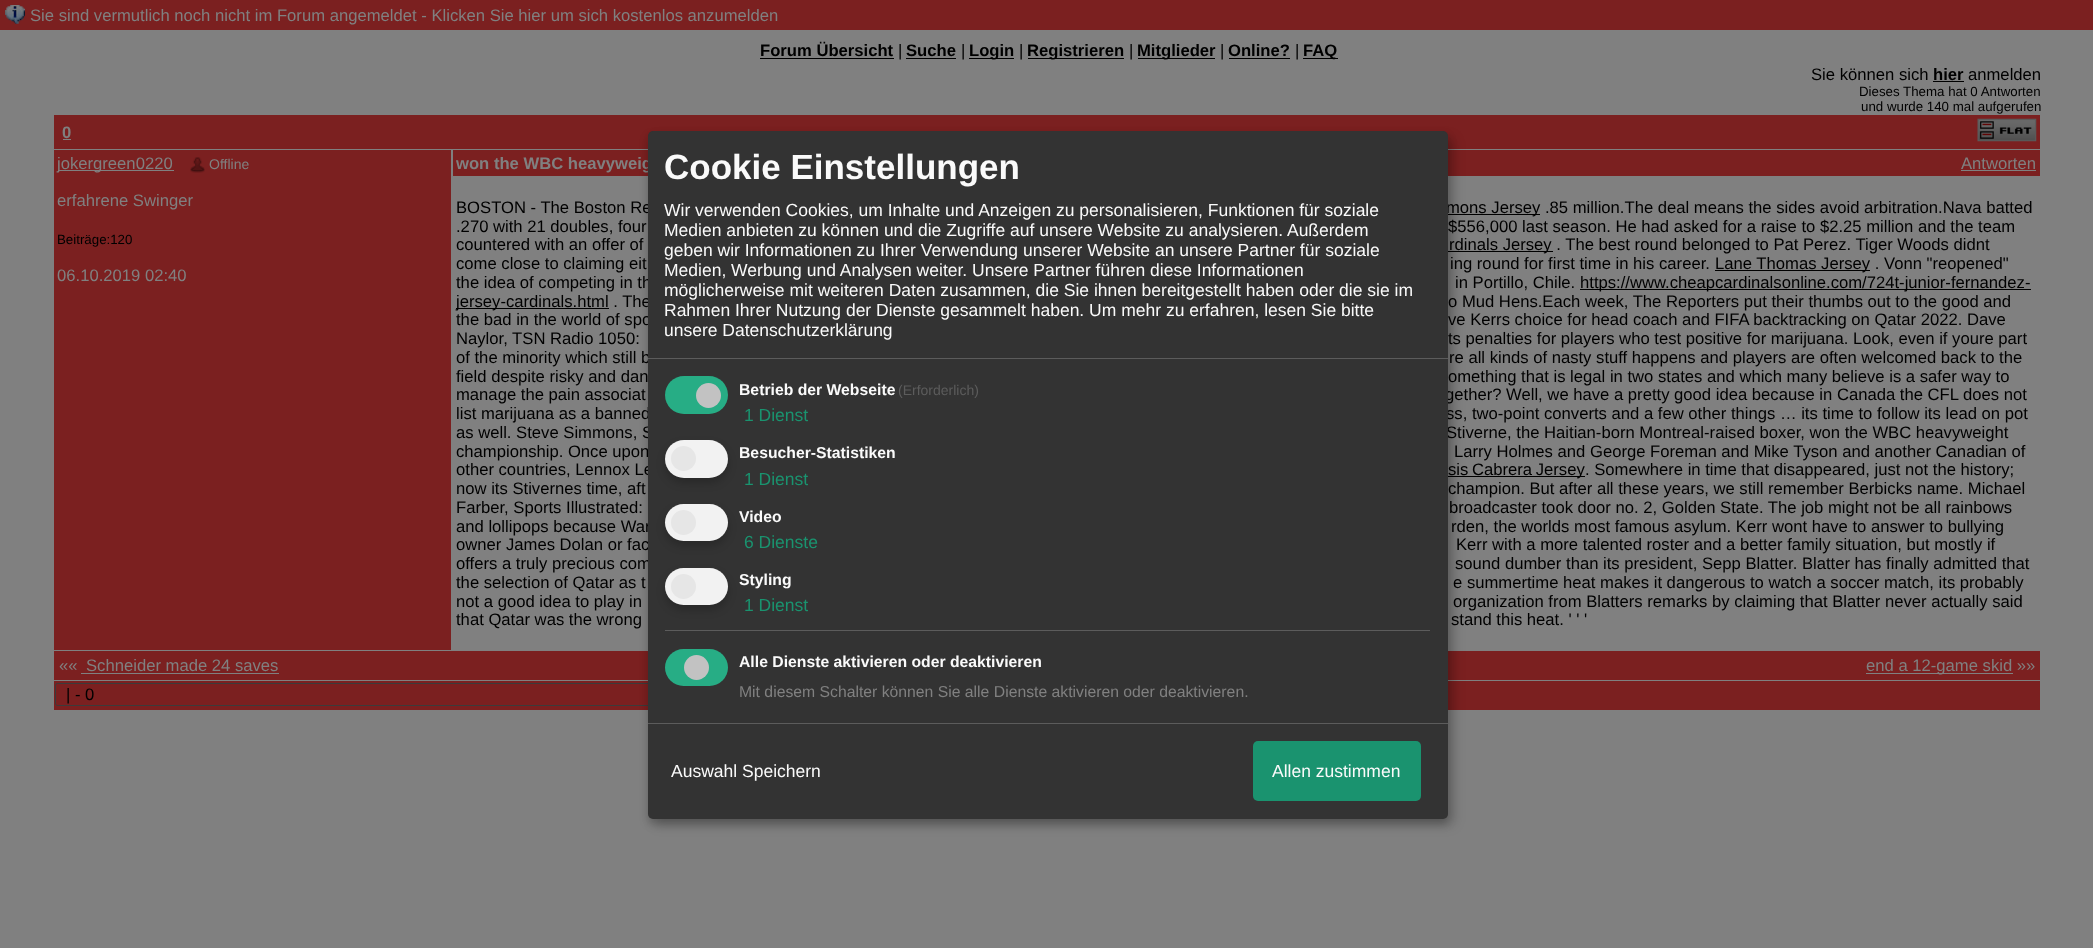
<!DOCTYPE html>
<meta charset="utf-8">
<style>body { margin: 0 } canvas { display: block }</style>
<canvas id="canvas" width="2093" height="948"></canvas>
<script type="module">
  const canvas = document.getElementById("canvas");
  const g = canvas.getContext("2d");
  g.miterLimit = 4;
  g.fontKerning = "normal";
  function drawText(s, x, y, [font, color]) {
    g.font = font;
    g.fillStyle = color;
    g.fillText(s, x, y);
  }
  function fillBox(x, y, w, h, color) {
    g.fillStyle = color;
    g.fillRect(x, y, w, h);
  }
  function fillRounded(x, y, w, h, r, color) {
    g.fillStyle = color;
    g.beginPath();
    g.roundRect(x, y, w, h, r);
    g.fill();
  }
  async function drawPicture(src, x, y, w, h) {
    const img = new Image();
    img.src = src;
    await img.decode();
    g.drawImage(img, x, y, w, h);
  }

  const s1 = ["16.65px Liberation Sans", "#808080"];
  const s2 = ["bold 16.65px Liberation Sans", "#000000"];
  const s3 = ["16.65px Liberation Sans", "#000000"];
  const s4 = ["13.3px Liberation Sans", "#000000"];
  const s5 = ["bold 16.65px Liberation Sans", "#808080"];
  const s6 = ["14px Liberation Sans", "#808080"];
  const s7 = ["bold 35px Liberation Sans", "#FAFAFA"];
  const s8 = ["17.5px Liberation Sans", "#FAFAFA"];
  const s9 = ["bold 15.75px Liberation Sans", "#FAFAFA"];
  const s10 = ["14px Liberation Sans", "#5C5C5C"];
  const s11 = ["17.5px Liberation Sans", "#1A936F"];
  const s12 = ["15.75px Liberation Sans", "#808080"];

  fillBox(0, 0, 2093, 948, "#808080");
  fillBox(0, 0, 2093, 30, "#7B2020");
  await drawPicture("pic1.png", 5, 5, 20, 19);
  drawText("Sie sind vermutlich noch nicht im Forum angemeldet - Klicken Sie hier um sich kostenlos anzumelden", 30, 21, s1);
  drawText("Forum Übersicht", 760, 56, s2);
  fillBox(760, 58, 134, 1, "#000000");
  drawText("|", 898, 56, s3);
  drawText("Suche", 906, 56, s2);
  fillBox(906, 58, 50, 1, "#000000");
  drawText("|", 961, 56, s3);
  fillBox(969, 58, 45, 1, "#000000");
  drawText("Login", 969, 56, s2);
  drawText("|", 1019, 56, s3);
  fillBox(1028, 58, 96, 1, "#000000");
  drawText("Registrieren", 1027, 56, s2);
  drawText("|", 1129, 56, s3);
  fillBox(1138, 58, 77, 1, "#000000");
  drawText("Mitglieder", 1137, 56, s2);
  drawText("|", 1220, 56, s3);
  drawText("Online?", 1228, 56, s2);
  fillBox(1229, 58, 61, 1, "#000000");
  drawText("|", 1295, 56, s3);
  fillBox(1303, 58, 35, 1, "#000000");
  drawText("FAQ", 1303, 56, s2);
  drawText("Sie können sich", 1811, 80, s3);
  drawText("hier", 1933, 80, s2);
  fillBox(1933, 81, 31, 1, "#000000");
  drawText("anmelden", 1968, 80, s3);
  drawText("Dieses Thema hat 0 Antworten", 1859, 96, s4);
  drawText("und wurde 140 mal aufgerufen", 1861, 111, s4);
  fillBox(54, 115, 1986, 34, "#7B2020");
  drawText("0", 62, 138, s5);
  fillBox(63, 139, 8, 1, "#808080");
  await drawPicture("pic2.png", 1977, 118, 60, 24);
  fillBox(54, 150, 397, 500, "#7B2020");
  fillBox(58, 170, 116, 1, "#808080");
  drawText("jokergreen0220", 57, 169, s1);
  await drawPicture("pic3.png", 190, 157, 15, 16);
  drawText("Offline", 209, 169, s6);
  drawText("erfahrene Swinger", 57, 206, s1);
  drawText("Beiträge:120", 57, 244, s4);
  drawText("06.10.2019 02:40", 57, 281, s1);
  fillBox(453, 150, 1587, 26, "#7B2020");
  drawText("won the WBC heavyweig", 456, 169, s5);
  drawText("Antworten", 1961, 169, s1);
  fillBox(1961, 170, 75, 1, "#808080");
  drawText("BOSTON - The Boston Re", 456, 213, s3);
  fillBox(1448, 214, 92, 1, "#000000");
  drawText("mons Jersey .85 million.The deal means the sides avoid arbitration.Nava batted", 1446, 213, s3);
  drawText(".270 with 21 doubles, four", 456, 232, s3);
  drawText("$556,000 last season. He had asked for a raise to $2.25 million and the team", 1448, 232, s3);
  drawText("countered with an offer of", 456, 250, s3);
  fillBox(1448, 251, 105, 1, "#000000");
  drawText("rdinals Jersey . The best round belonged to Pat Perez. Tiger Woods didnt", 1449, 250, s3);
  drawText("come close to claiming eit", 456, 269, s3);
  drawText("ing round for first time in his career.", 1450, 269, s3);
  fillBox(1715, 270, 155, 1, "#000000");
  drawText("Lane Thomas Jersey . Vonn \"reopened\"", 1715, 269, s3);
  drawText("the idea of competing in th", 456, 288, s3);
  drawText("in Portillo, Chile.", 1455, 288, s3);
  fillBox(1580, 289, 451, 1, "#000000");
  drawText("https://www.cheapcardinalsonline.com/724t-junior-fernandez-", 1580, 288, s3);
  fillBox(456, 308, 153, 1, "#000000");
  drawText("jersey-cardinals.html . The", 456, 307, s3);
  drawText("o Mud Hens.Each week, The Reporters put their thumbs out to the good and", 1448, 307, s3);
  drawText("the bad in the world of spo", 456, 325, s3);
  drawText("ve Kerrs choice for head coach and FIFA backtracking on Qatar 2022. Dave", 1448, 325, s3);
  drawText("Naylor, TSN Radio 1050:", 456, 344, s3);
  drawText("ts penalties for players who test positive for marijuana. Look, even if youre part", 1448, 344, s3);
  drawText("of the minority which still b", 456, 363, s3);
  drawText("re all kinds of nasty stuff happens and players are often welcomed back to the", 1449, 363, s3);
  drawText("field despite risky and dan", 456, 382, s3);
  drawText("omething that is legal in two states and which many believe is a safer way to", 1448, 382, s3);
  drawText("manage the pain associat", 456, 400, s3);
  drawText("gether? Well, we have a pretty good idea because in Canada the CFL does not", 1445, 400, s3);
  drawText("list marijuana as a banned", 456, 419, s3);
  drawText("ss, two-point converts and a few other things … its time to follow its lead on pot", 1446, 419, s3);
  drawText("as well. Steve Simmons, S", 456, 438, s3);
  drawText("Stiverne, the Haitian-born Montreal-raised boxer, won the WBC heavyweight", 1446, 438, s3);
  drawText("championship. Once upon", 456, 457, s3);
  drawText("Larry Holmes and George Foreman and Mike Tyson and another Canadian of", 1454, 457, s3);
  drawText("other countries, Lennox Le", 456, 475, s3);
  fillBox(1448, 476, 137, 1, "#000000");
  g.wordSpacing = "-1px";
  drawText("sis Cabrera Jersey", 1448, 475, s3);
  g.wordSpacing = "0px";
  drawText(". Somewhere in time that disappeared, just not the history;", 1585, 475, s3);
  drawText("now its Stivernes time, aft", 456, 494, s3);
  drawText("champion. But after all these years, we still remember Berbicks name. Michael", 1448, 494, s3);
  drawText("Farber, Sports Illustrated:", 456, 513, s3);
  drawText("broadcaster took door no. 2, Golden State. The job might not be all rainbows", 1449, 513, s3);
  drawText("and lollipops because War", 456, 532, s3);
  drawText("rden, the worlds most famous asylum. Kerr wont have to answer to bullying", 1451, 532, s3);
  drawText("owner James Dolan or fac", 456, 550, s3);
  drawText("Kerr with a more talented roster and a better family situation, but mostly if", 1456, 550, s3);
  drawText("offers a truly precious com", 456, 569, s3);
  drawText("sound dumber than its president, Sepp Blatter. Blatter has finally admitted that", 1455, 569, s3);
  drawText("the selection of Qatar as t", 456, 588, s3);
  drawText("e summertime heat makes it dangerous to watch a soccer match, its probably", 1453, 588, s3);
  drawText("not a good idea to play in", 456, 607, s3);
  drawText("organization from Blatters remarks by claiming that Blatter never actually said", 1453, 607, s3);
  drawText("that Qatar was the wrong", 456, 625, s3);
  drawText("stand this heat. ' ' '", 1451, 625, s3);
  fillBox(54, 651, 1986, 29, "#7B2020");
  drawText("««", 59, 671, s1);
  drawText("Schneider made 24 saves", 86, 671, s1);
  fillBox(81, 673, 198, 1, "#808080");
  fillBox(1866, 673, 147, 1, "#808080");
  drawText("end a 12-game skid »»", 1866, 671, s1);
  fillBox(54, 681, 1986, 29, "#7B2020");
  g.beginPath();
  g.roundRect(55.5, 683.5, 692, 22, 2);
  g.strokeStyle = "#3B3B3B";
  g.stroke();
  drawText("| - 0", 66, 700, s3);
  g.fillStyle = "rgba(0, 0, 0, 0.19)";
  g.filter = "blur(6px)";
  g.beginPath();
  g.roundRect(654, 138, 800, 687, 5);
  g.fill();
  g.filter = "none";
  g.fillStyle = "rgba(0, 0, 0, 0.2)";
  g.filter = "blur(4px)";
  g.beginPath();
  g.roundRect(648, 136, 800, 688, 5);
  g.fill();
  g.filter = "none";
  fillRounded(648, 131, 800, 688, 5, "#333333");
  fillBox(648, 358, 800, 1, "#5C5C5C");
  drawText("Cookie Einstellungen", 664, 179, s7);
  drawText("Wir verwenden Cookies, um Inhalte und Anzeigen zu personalisieren, Funktionen für soziale", 664, 216, s8);
  drawText("Medien anbieten zu können und die Zugriffe auf unsere Website zu analysieren. Außerdem", 664, 236, s8);
  drawText("geben wir Informationen zu Ihrer Verwendung unserer Website an unsere Partner für soziale", 664, 256, s8);
  drawText("Medien, Werbung und Analysen weiter. Unsere Partner führen diese Informationen", 664, 276, s8);
  drawText("möglicherweise mit weiteren Daten zusammen, die Sie ihnen bereitgestellt haben oder die sie im", 664, 296, s8);
  drawText("Rahmen Ihrer Nutzung der Dienste gesammelt haben. Um mehr zu erfahren, lesen Sie bitte", 664, 316, s8);
  drawText("unsere Datenschutzerklärung", 664, 336, s8);
  fillRounded(665, 376, 63, 38, 19, "#27AD85");
  g.fillStyle = "#C2C2C2";
  g.beginPath();
  g.arc(708.5, 395.5, 12.5, 0, Math.PI * 2);
  g.fill();
  drawText("Betrieb der Webseite", 739, 395, s9);
  drawText("(Erforderlich)", 898, 395, s10);
  drawText("1 Dienst", 744, 421, s11);
  g.fillStyle = "rgba(0, 0, 0, 0.2)";
  g.filter = "blur(4px)";
  g.beginPath();
  g.roundRect(665, 445, 63, 38, 19);
  g.fill();
  g.filter = "none";
  fillRounded(665, 440, 63, 38, 19, "#F2F2F2");
  g.fillStyle = "#E6E6E6";
  g.beginPath();
  g.arc(683.5, 458.5, 12.5, 0, Math.PI * 2);
  g.fill();
  drawText("Besucher-Statistiken", 739, 458, s9);
  drawText("1 Dienst", 744, 485, s11);
  g.fillStyle = "rgba(0, 0, 0, 0.2)";
  g.filter = "blur(4px)";
  g.beginPath();
  g.roundRect(665, 509, 63, 37, 18.5);
  g.fill();
  g.filter = "none";
  fillRounded(665, 504, 63, 37, 18.5, "#F2F2F2");
  g.fillStyle = "#E6E6E6";
  g.beginPath();
  g.arc(683.5, 522.5, 12.5, 0, Math.PI * 2);
  g.fill();
  drawText("Video", 739, 522, s9);
  drawText("6 Dienste", 744, 548, s11);
  g.fillStyle = "rgba(0, 0, 0, 0.2)";
  g.filter = "blur(4px)";
  g.beginPath();
  g.roundRect(665, 573, 63, 37, 18.5);
  g.fill();
  g.filter = "none";
  fillRounded(665, 568, 63, 37, 18.5, "#F2F2F2");
  g.fillStyle = "#E6E6E6";
  g.beginPath();
  g.arc(683.5, 586.5, 12.5, 0, Math.PI * 2);
  g.fill();
  drawText("Styling", 739, 585, s9);
  drawText("1 Dienst", 744, 611, s11);
  fillBox(665, 630, 765, 1, "#5C5C5C");
  fillRounded(665, 649, 63, 37, 18.5, "#27AD85");
  g.fillStyle = "#C2C2C2";
  g.beginPath();
  g.arc(696.5, 667.5, 12.5, 0, Math.PI * 2);
  g.fill();
  drawText("Alle Dienste aktivieren oder deaktivieren", 739, 667, s9);
  drawText("Mit diesem Schalter können Sie alle Dienste aktivieren oder deaktivieren.", 739, 697, s12);
  fillBox(648, 723, 800, 1, "#5C5C5C");
  drawText("Auswahl Speichern", 671, 777, s8);
  fillRounded(1253, 741, 168, 60, 5, "#1A936F");
  drawText("Allen zustimmen", 1272, 777, s8);
</script>
